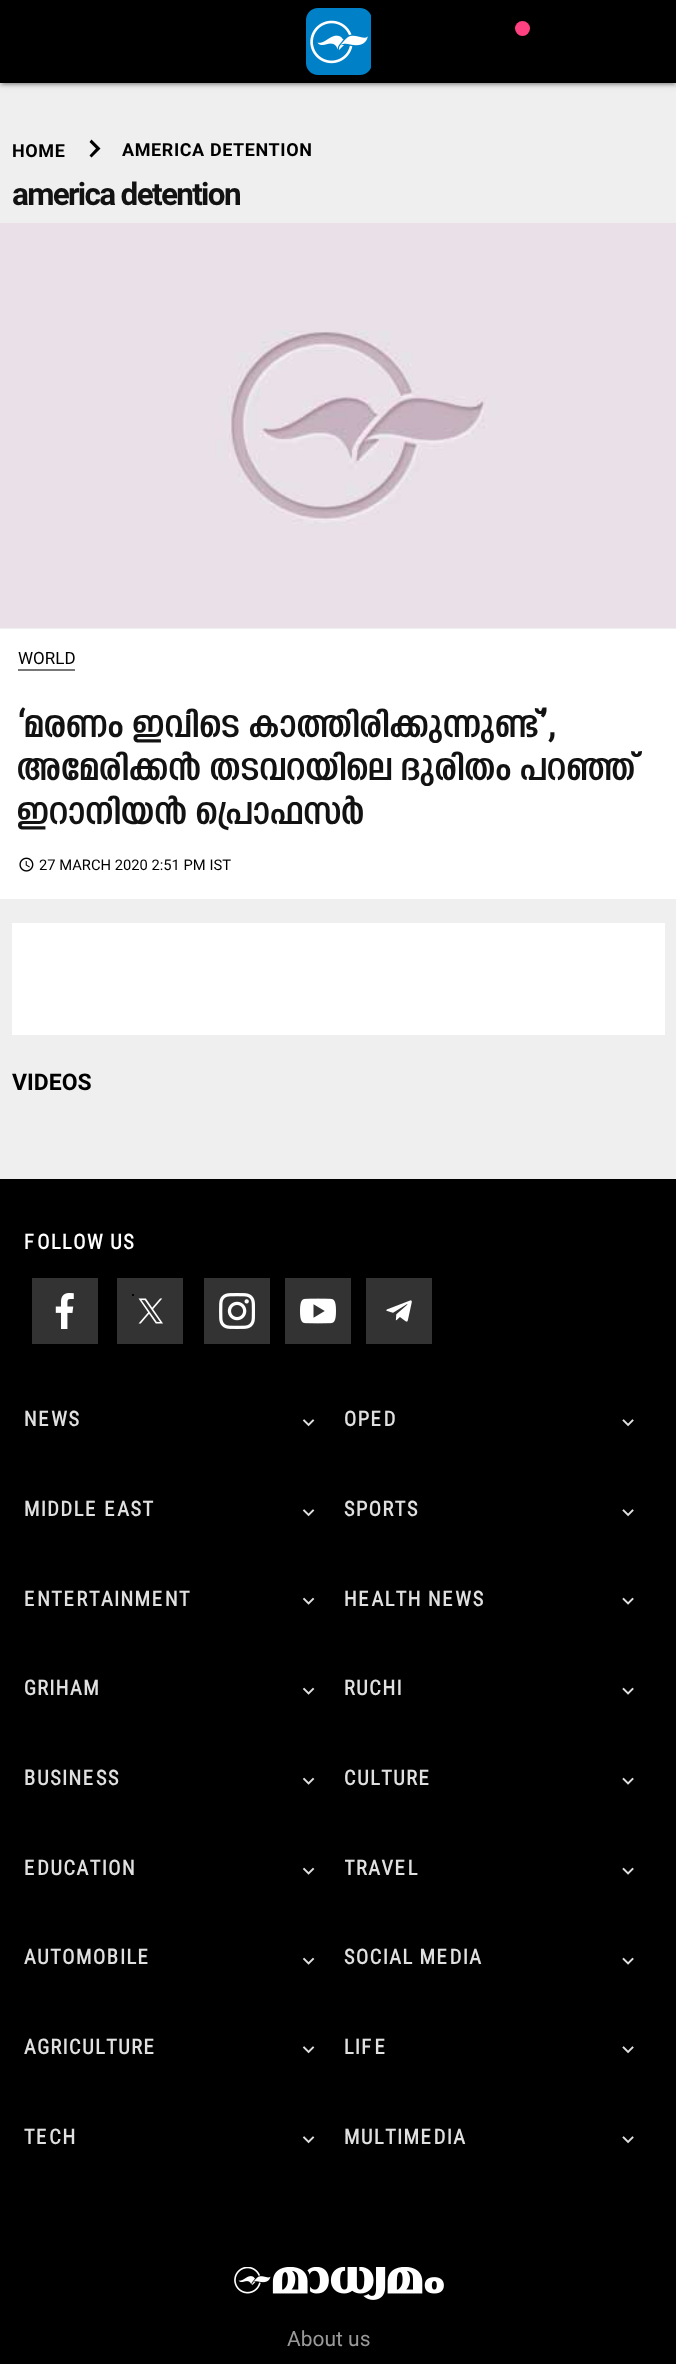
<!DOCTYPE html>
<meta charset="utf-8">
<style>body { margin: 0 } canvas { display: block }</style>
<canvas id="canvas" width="676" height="2364"></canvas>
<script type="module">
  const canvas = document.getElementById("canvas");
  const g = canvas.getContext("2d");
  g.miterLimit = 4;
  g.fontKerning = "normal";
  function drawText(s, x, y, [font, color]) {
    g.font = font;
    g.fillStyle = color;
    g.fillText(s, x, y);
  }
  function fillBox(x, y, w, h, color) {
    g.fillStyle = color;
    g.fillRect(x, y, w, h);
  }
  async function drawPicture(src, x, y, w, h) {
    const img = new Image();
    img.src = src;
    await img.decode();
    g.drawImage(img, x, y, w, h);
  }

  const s1 = ["bold 18px Roboto", "#000000"];
  const s2 = ["bold 31.5px Roboto", "#121212"];
  const s3 = ["17px Roboto", "#000000"];
  const s4 = ["39.9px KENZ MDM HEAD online", "#121212"];
  const s5 = ["14.75px Roboto", "#000000"];
  const s6 = ["bold 23px Roboto", "#000000"];
  const s7 = ["23px KENZ MDM HEAD online", "#FFFFFF"];
  const s8 = ["23px KENZ MDM HEAD online", "#E0E0E0"];
  const s9 = ["21px Roboto", "#999999"];

  fillBox(0, 0, 676, 2364, "#EFEFEF");
  g.fillStyle = "rgba(0, 0, 0, 0.12)";
  g.filter = "blur(4px)";
  g.beginPath();
  g.rect(0, 2, 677, 82);
  g.fill();
  g.filter = "none";
  g.fillStyle = "rgba(0, 0, 0, 0.2)";
  g.filter = "blur(1px)";
  g.beginPath();
  g.rect(3, 8, 671, 76);
  g.fill();
  g.filter = "none";
  g.fillStyle = "rgba(0, 0, 0, 0.14)";
  g.filter = "blur(1.5px)";
  g.beginPath();
  g.rect(0, 3, 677, 83);
  g.fill();
  g.filter = "none";
  fillBox(0, 0, 676, 83, "#000000");
  await drawPicture("pic1.png", 306, 8, 65, 67);
  g.fillStyle = "#FF4081";
  g.beginPath();
  g.arc(522.5, 28.5, 7.5, 0, Math.PI * 2);
  g.fill();
  g.letterSpacing = "0.6px";
  drawText("HOME", 12, 157, s1);
  g.beginPath();
  g.moveTo(91.5, 139.5);
  g.lineTo(100.5, 148.5);
  g.lineTo(91.5, 157.5);
  g.lineTo(89.5, 155.5);
  g.lineTo(96, 148.5);
  g.lineTo(89.5, 142);
  g.closePath();
  g.fill();
  drawText("AMERICA DETENTION", 122, 156, s1);
  g.letterSpacing = "-1.7px";
  drawText("america detention", 12, 205, s2);
  await drawPicture("pic2.png", 0, 223, 676, 405);
  fillBox(0, 629, 676, 270, "#FFFFFF");
  g.letterSpacing = "0px";
  drawText("WORLD", 18, 664, s3);
  fillBox(18, 669, 57, 2, "#777777");
  drawText("‘മരണം ഇവിടെ കാത്തിരിക്കുന്നുണ്ട്’,", 18, 737, s4);
  drawText("അമേരിക്കൻ തടവറയിലെ ദുരിതം പറഞ്ഞ്", 18, 780, s4);
  drawText("ഇറാനിയൻ പ്രൊഫസർ", 18, 824, s4);
  await drawPicture("pic3.png", 19, 857, 15, 15);
  drawText("27 MARCH 2020 2:51 PM IST", 39, 870, s5);
  fillBox(12, 923, 653, 112, "#FFFFFF");
  drawText("VIDEOS", 12, 1090, s6);
  fillBox(0, 1179, 676, 1185, "#000000");
  g.letterSpacing = "0.9px";
  drawText("FOLLOW US", 24, 1249, s7);
  fillBox(32, 1278, 66, 66, "#333333");
  fillBox(117, 1278, 66, 66, "#333333");
  fillBox(204, 1278, 66, 66, "#333333");
  fillBox(285, 1278, 66, 66, "#333333");
  fillBox(366, 1278, 66, 66, "#333333");
  await drawPicture("pic4.png", 55, 1293, 19, 36);
  await drawPicture("pic5.png", 132, 1294, 31, 30);
  await drawPicture("pic6.png", 219, 1293, 36, 36);
  await drawPicture("pic7.png", 300, 1298, 36, 26);
  await drawPicture("pic8.png", 386, 1300, 26, 22);
  drawText("NEWS", 24, 1426, s8);
  await drawPicture("pic9.png", 302, 1419, 13, 8);
  drawText("OPED", 344, 1426, s8);
  await drawPicture("pic10.png", 622, 1419, 12, 8);
  drawText("MIDDLE EAST", 24, 1516, s8);
  await drawPicture("pic9.png", 302, 1509, 13, 8);
  drawText("SPORTS", 344, 1516, s8);
  await drawPicture("pic10.png", 622, 1509, 12, 8);
  drawText("ENTERTAINMENT", 24, 1606, s8);
  await drawPicture("pic11.png", 302, 1597, 13, 8);
  drawText("HEALTH NEWS", 344, 1606, s8);
  await drawPicture("pic12.png", 622, 1597, 12, 8);
  drawText("GRIHAM", 24, 1695, s8);
  await drawPicture("pic11.png", 302, 1687, 13, 8);
  drawText("RUCHI", 344, 1695, s8);
  await drawPicture("pic12.png", 622, 1687, 12, 8);
  drawText("BUSINESS", 24, 1785, s8);
  await drawPicture("pic11.png", 302, 1777, 13, 8);
  drawText("CULTURE", 344, 1785, s8);
  await drawPicture("pic12.png", 622, 1777, 12, 8);
  drawText("EDUCATION", 24, 1875, s8);
  await drawPicture("pic11.png", 302, 1867, 13, 8);
  g.save();
  g.beginPath();
  g.rect(345, 1854, 308, 36);
  g.clip();
  drawText("TRAVEL", 344, 1875, s8);
  g.restore();
  await drawPicture("pic12.png", 622, 1867, 12, 8);
  drawText("AUTOMOBILE", 24, 1964, s8);
  await drawPicture("pic11.png", 302, 1957, 13, 8);
  drawText("SOCIAL MEDIA", 344, 1964, s8);
  await drawPicture("pic12.png", 622, 1957, 12, 8);
  drawText("AGRICULTURE", 24, 2054, s8);
  await drawPicture("pic9.png", 302, 2046, 13, 8);
  drawText("LIFE", 344, 2054, s8);
  await drawPicture("pic10.png", 622, 2046, 12, 8);
  drawText("TECH", 24, 2144, s8);
  await drawPicture("pic9.png", 302, 2136, 13, 8);
  drawText("MULTIMEDIA", 344, 2144, s8);
  await drawPicture("pic10.png", 622, 2136, 12, 8);
  await drawPicture("pic13.png", 234, 2267, 210, 33);
  g.letterSpacing = "0px";
  drawText("About us", 287, 2346, s9);
</script>
